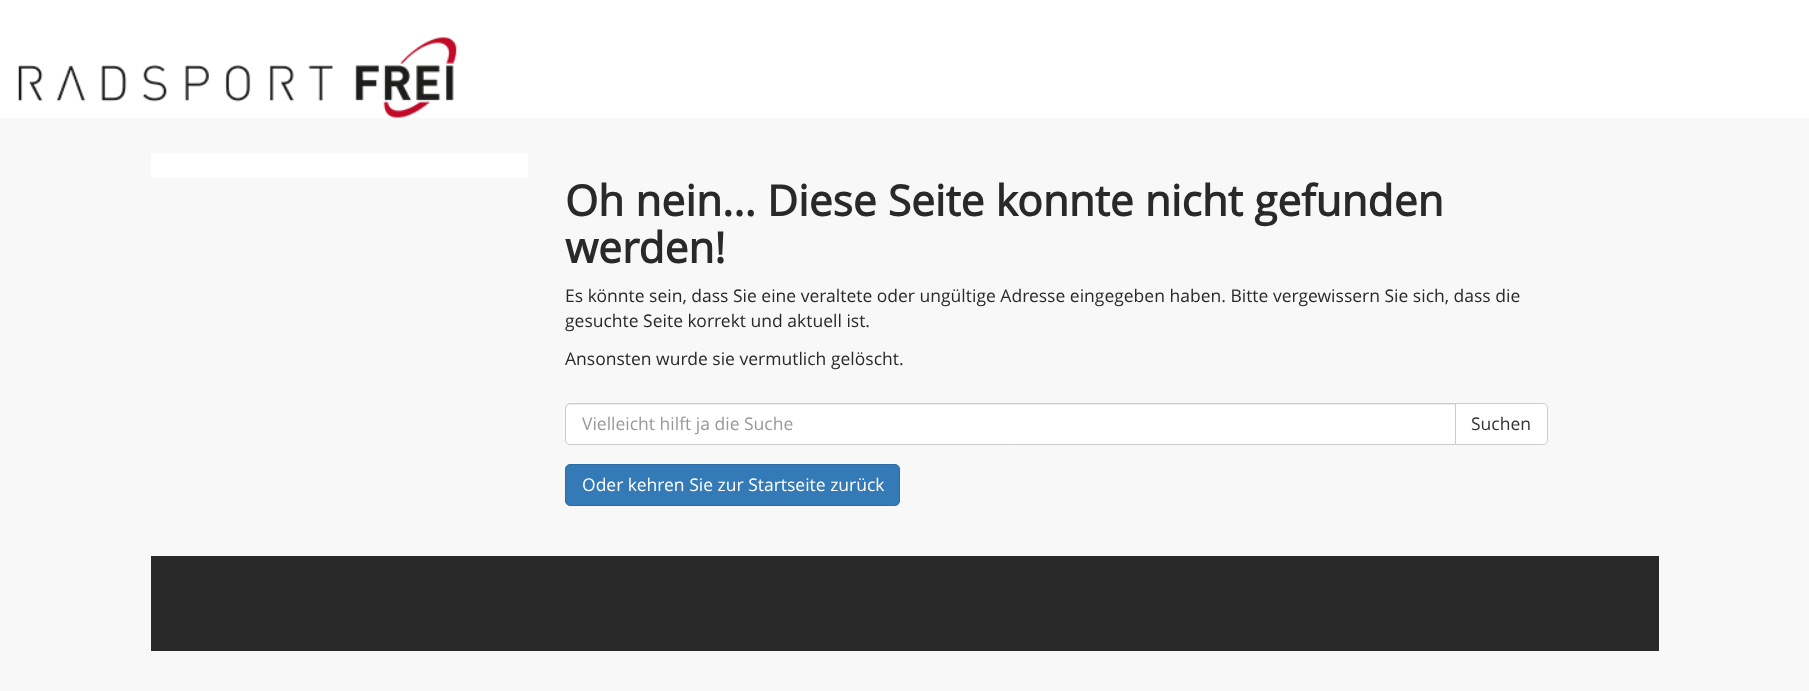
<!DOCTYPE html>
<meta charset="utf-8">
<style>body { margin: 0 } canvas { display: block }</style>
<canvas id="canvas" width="1809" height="691"></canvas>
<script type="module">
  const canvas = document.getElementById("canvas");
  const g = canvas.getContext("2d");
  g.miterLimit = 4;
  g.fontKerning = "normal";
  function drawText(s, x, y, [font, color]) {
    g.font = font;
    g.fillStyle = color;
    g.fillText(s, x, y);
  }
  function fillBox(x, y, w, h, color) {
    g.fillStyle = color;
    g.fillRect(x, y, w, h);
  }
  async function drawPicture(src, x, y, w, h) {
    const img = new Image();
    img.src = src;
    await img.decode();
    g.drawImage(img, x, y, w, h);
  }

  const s1 = ["bold 42.5px Open Sans", "#292929"];
  const s2 = ["17.5px Open Sans", "#292929"];
  const s3 = ["17.5px Open Sans", "#999999"];
  const s4 = ["17.5px Open Sans", "#333333"];
  const s5 = ["17.5px Open Sans", "#FFFFFF"];

  fillBox(0, 0, 1809, 691, "#F8F8F8");
  fillBox(0, 0, 1809, 118, "#FFFFFF");
  await drawPicture("pic1.png", 18, 37, 439, 81);
  fillBox(151, 153, 377, 25, "#FFFFFF");
  drawText("Oh nein... Diese Seite konnte nicht gefunden", 565, 216, s1);
  drawText("werden!", 565, 263, s1);
  drawText("Es könnte sein, dass Sie eine veraltete oder ungültige Adresse eingegeben haben. Bitte vergewissern Sie sich, dass die", 565, 302, s2);
  drawText("gesuchte Seite korrekt und aktuell ist.", 565, 327, s2);
  drawText("Ansonsten wurde sie vermutlich gelöscht.", 565, 365, s2);
  g.fillStyle = "#FFFFFF";
  g.beginPath();
  g.roundRect(565, 403, 891, 42, [5, 0, 0, 5]);
  g.fill();
  g.fillStyle = "#ECECEC";
  g.beginPath();
  g.moveTo(570, 405);
  g.lineTo(1455, 405);
  g.lineTo(1455, 404);
  g.lineTo(570, 404);
  g.bezierCurveTo(567, 404, 566, 406, 566, 409);
  g.bezierCurveTo(566, 407, 568, 405, 570, 405);
  g.closePath();
  g.fill();
  g.beginPath();
  g.roundRect(565.5, 403.5, 890, 41, [4.5, 0, 0, 4.5]);
  g.strokeStyle = "#CCCCCC";
  g.stroke();
  drawText("Vielleicht hilft ja die Suche", 582, 430, s3);
  g.fillStyle = "#FFFFFF";
  g.beginPath();
  g.roundRect(1455.5, 403.5, 92, 41, [0, 4.5, 4.5, 0]);
  g.fill();
  g.stroke();
  drawText("Suchen", 1471, 430, s4);
  g.fillStyle = "#337AB7";
  g.beginPath();
  g.roundRect(565.5, 464.5, 334, 41, 4.5);
  g.fill();
  g.strokeStyle = "#2E6DA4";
  g.stroke();
  drawText("Oder kehren Sie zur Startseite zurück", 582, 491, s5);
  fillBox(151, 556, 1508, 95, "#292929");
</script>
